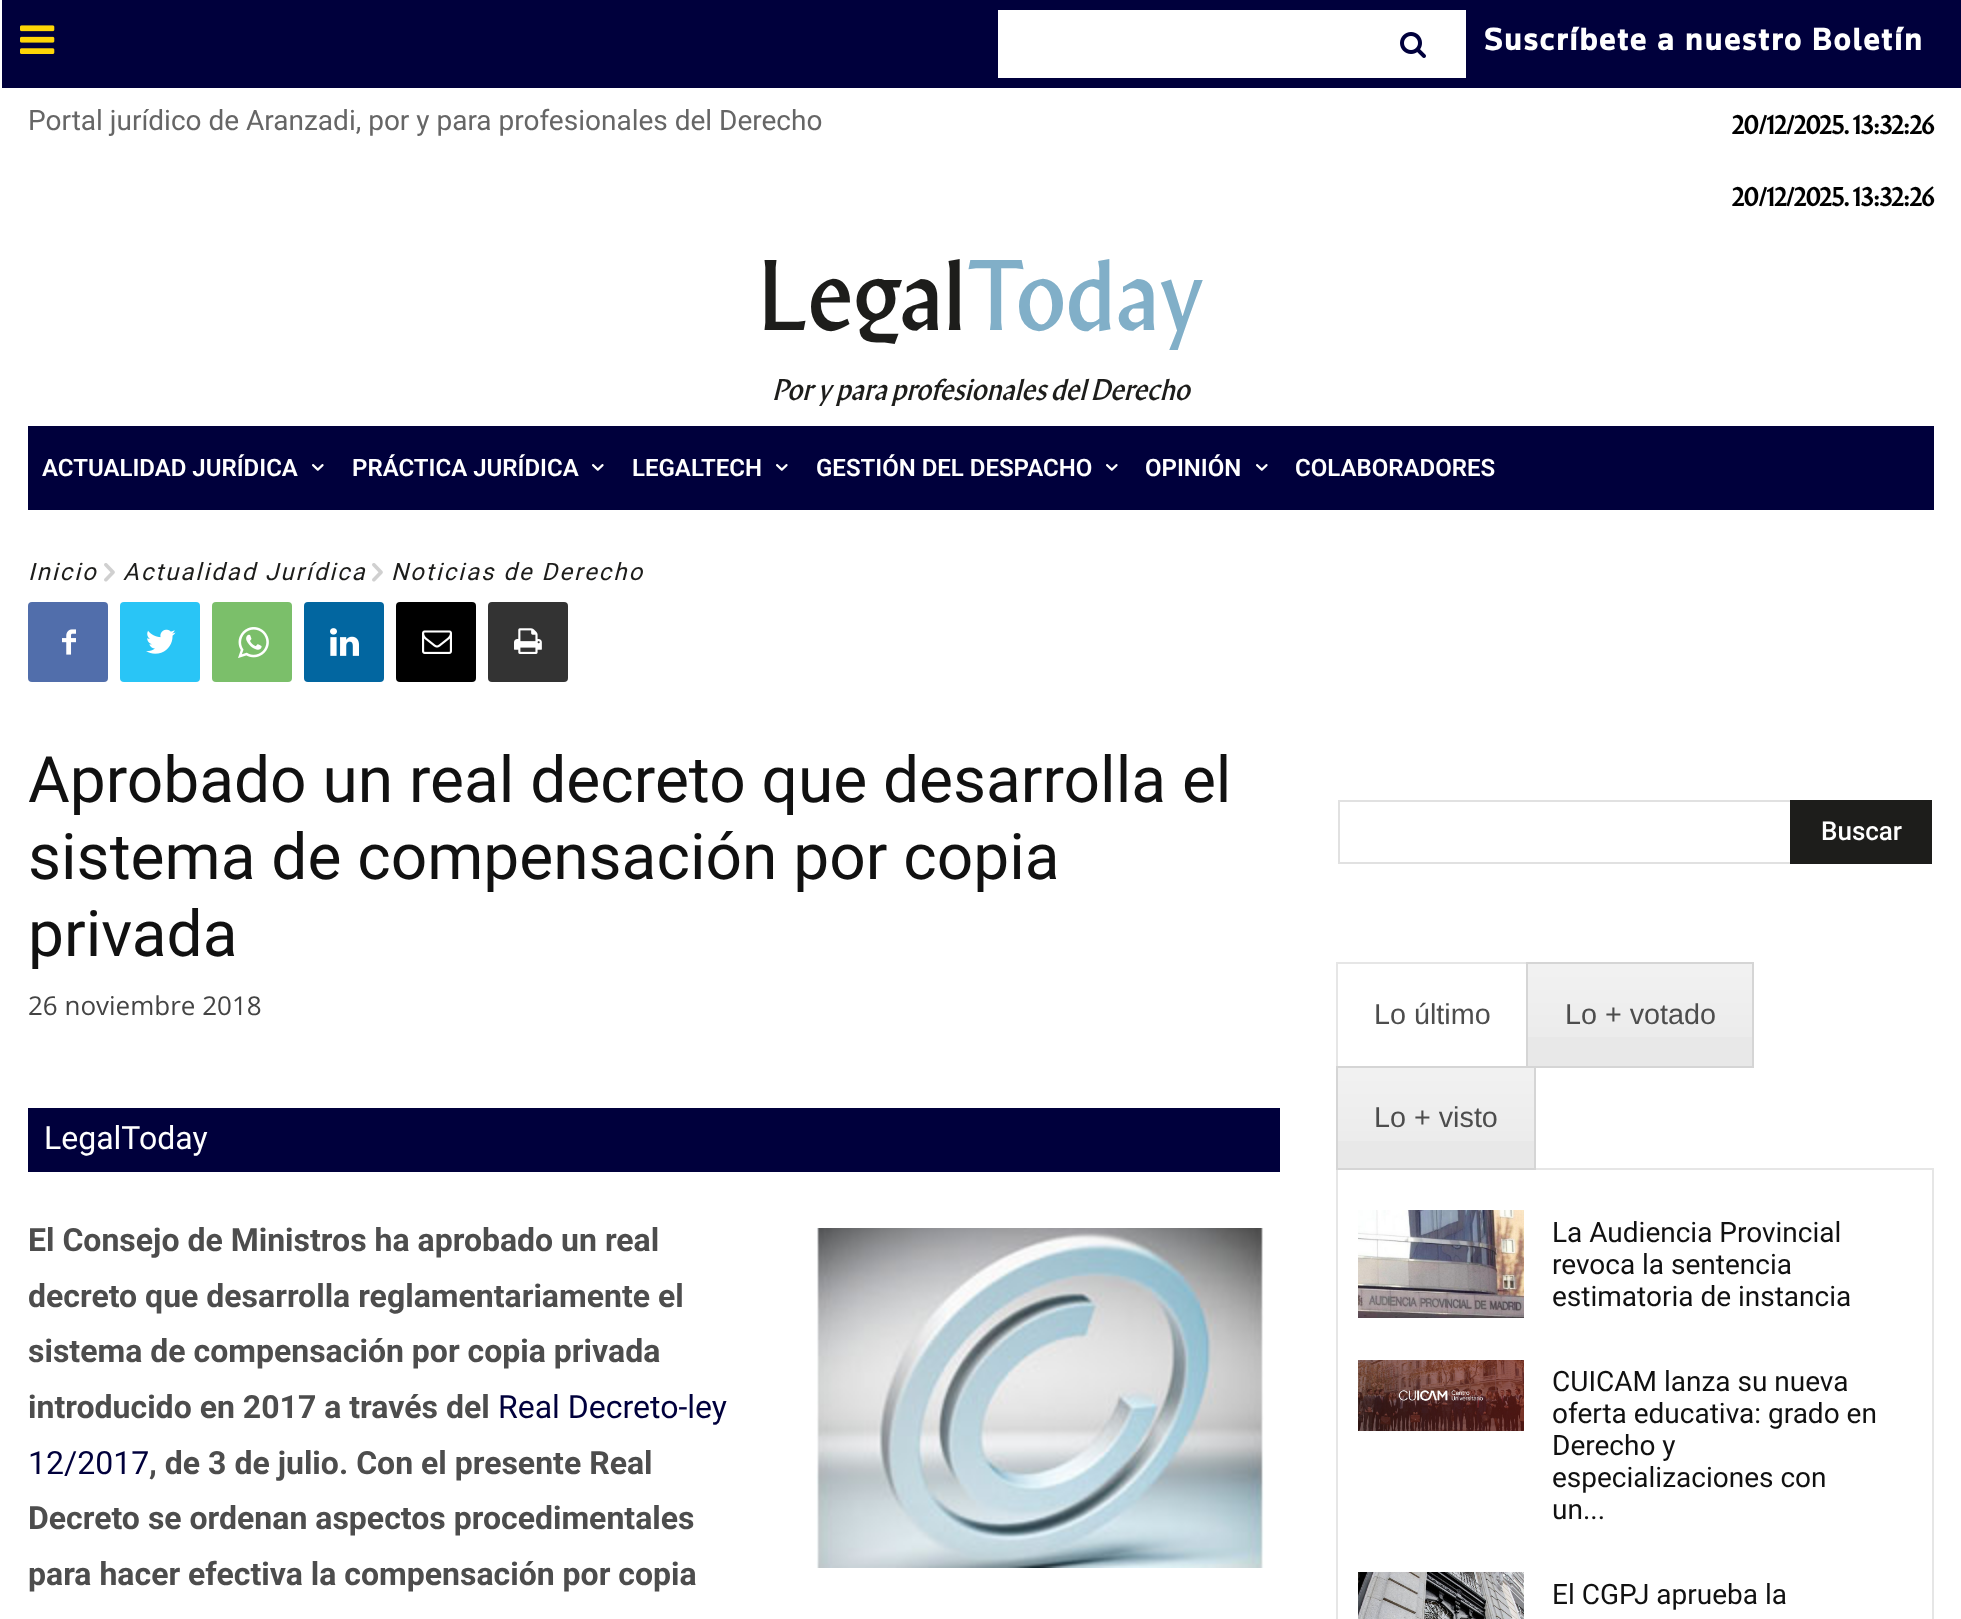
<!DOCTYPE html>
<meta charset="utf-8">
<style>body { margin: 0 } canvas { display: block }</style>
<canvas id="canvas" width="1961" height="1619"></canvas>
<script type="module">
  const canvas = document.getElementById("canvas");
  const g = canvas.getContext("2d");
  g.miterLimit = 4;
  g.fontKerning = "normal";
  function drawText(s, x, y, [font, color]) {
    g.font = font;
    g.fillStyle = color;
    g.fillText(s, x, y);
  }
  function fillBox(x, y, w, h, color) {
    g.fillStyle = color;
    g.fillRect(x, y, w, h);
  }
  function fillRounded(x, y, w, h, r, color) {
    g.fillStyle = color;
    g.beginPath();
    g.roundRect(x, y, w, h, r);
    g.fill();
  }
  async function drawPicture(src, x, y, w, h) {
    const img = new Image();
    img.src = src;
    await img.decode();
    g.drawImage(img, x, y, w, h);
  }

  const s1 = ["bold 32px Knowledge", "#FFFFFF"];
  const s2 = ["28px Roboto", "#666666"];
  const s3 = ["bold 26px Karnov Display", "#000000"];
  const s4 = ["100px Karnov Display", "#1D1D1B"];
  const s5 = ["100px Karnov Display", "#81AFC8"];
  const s6 = ["italic 30px Karnov Display", "#1D1D1B"];
  const s7 = ["600 24px Roboto", "#FFFFFF"];
  const s8 = ["italic 24px Roboto", "#1D1D1B"];
  const s9 = ["64px Roboto", "#111111"];
  const s10 = ["26px Open Sans", "#444444"];
  const s11 = ["32px Roboto", "#FFFFFF"];
  const s12 = ["bold 32px Roboto", "#4D4D4D"];
  const s13 = ["32px Roboto", "#00003C"];
  const s14 = ["500 26px Roboto", "#FFFFFF"];
  const s15 = ["28.75px Liberation Sans", "#4D4D4D"];
  const s16 = ["28px Roboto", "#111111"];

  fillBox(0, 0, 1961, 1619, "#FFFFFF");
  fillBox(2, 0, 1959, 88, "#00003C");
  await drawPicture("pic1.png", 20, 25, 35, 29);
  fillBox(998, 10, 468, 68, "#FFFFFF");
  await drawPicture("pic2.png", 1400, 32, 26, 26);
  g.letterSpacing = "2px";
  drawText("Suscríbete a nuestro Boletín", 1484, 50, s1);
  g.letterSpacing = "0px";
  drawText("Portal jurídico de Aranzadi, por y para profesionales del Derecho", 28, 130, s2);
  drawText("20/12/2025. 13:32:26", 1732, 134, s3);
  drawText("20/12/2025. 13:32:26", 1732, 206, s3);
  drawText("Legal", 758, 330, s4);
  drawText("Today", 966, 330, s5);
  drawText("Por y para profesionales del Derecho", 772, 400, s6);
  fillBox(28, 426, 1906, 84, "#00003C");
  drawText("ACTUALIDAD JURÍDICA", 42, 476, s7);
  await drawPicture("pic3.png", 312, 464, 12, 7);
  drawText("PRÁCTICA JURÍDICA", 352, 476, s7);
  await drawPicture("pic3.png", 592, 464, 12, 7);
  drawText("LEGALTECH", 632, 476, s7);
  await drawPicture("pic3.png", 776, 464, 12, 7);
  drawText("GESTIÓN DEL DESPACHO", 816, 476, s7);
  await drawPicture("pic3.png", 1106, 464, 12, 7);
  drawText("OPINIÓN", 1145, 476, s7);
  await drawPicture("pic3.png", 1256, 464, 12, 7);
  drawText("COLABORADORES", 1295, 476, s7);
  g.letterSpacing = "2px";
  drawText("Inicio", 28, 580, s8);
  await drawPicture("pic4.png", 104, 563, 11, 19);
  drawText("Actualidad Jurídica", 123, 580, s8);
  await drawPicture("pic4.png", 372, 563, 11, 19);
  drawText("Noticias de Derecho", 391, 580, s8);
  fillRounded(28, 602, 80, 80, 4, "#516EAB");
  await drawPicture("pic5.png", 62, 629, 14, 26);
  fillRounded(120, 602, 80, 80, 4, "#29C5F6");
  await drawPicture("pic6.png", 146, 629, 30, 25);
  fillRounded(212, 602, 80, 80, 4, "#7BBF6A");
  await drawPicture("pic7.png", 238, 627, 31, 31);
  fillRounded(304, 602, 80, 80, 4, "#0266A0");
  await drawPicture("pic8.png", 330, 628, 29, 28);
  fillRounded(396, 602, 80, 80, 4, "#000000");
  await drawPicture("pic9.png", 422, 630, 30, 24);
  fillRounded(488, 602, 80, 80, 4, "#333333");
  await drawPicture("pic10.png", 514, 628, 28, 26);
  g.letterSpacing = "0px";
  drawText("Aprobado un real decreto que desarrolla el", 28, 802, s9);
  drawText("sistema de compensación por copia", 28, 879, s9);
  drawText("privada", 28, 956, s9);
  drawText("26 noviembre 2018", 28, 1015, s10);
  fillBox(28, 1108, 1252, 64, "#00003C");
  drawText("LegalToday", 44, 1149, s11);
  drawText("El Consejo de Ministros ha aprobado un real", 28, 1251, s12);
  drawText("decreto que desarrolla reglamentariamente el", 28, 1307, s12);
  drawText("sistema de compensación por copia privada", 28, 1362, s12);
  drawText("introducido en 2017 a través del", 28, 1418, s12);
  drawText("Real Decreto-ley", 498, 1418, s13);
  drawText("12/2017", 28, 1474, s13);
  drawText(", de 3 de julio. Con el presente Real", 149, 1474, s12);
  drawText("Decreto se ordenan aspectos procedimentales", 28, 1529, s12);
  drawText("para hacer efectiva la compensación por copia", 28, 1585, s12);
  await drawPicture("pic11.png", 816, 1228, 448, 340);
  g.strokeStyle = "#E1E1E1";
  g.lineWidth = 2;
  g.strokeRect(1339, 801, 592, 62);
  fillBox(1790, 800, 142, 64, "#1D1D1B");
  drawText("Buscar", 1821, 840, s14);
  g.strokeStyle = "#E6E6E6";
  g.strokeRect(1337, 963, 190, 104);
  drawText("Lo último", 1374, 1024, s15);
  fillBox(1528, 964, 224, 102, "#E8E8E8");
  await drawPicture("pic12.png", 1528, 964, 224, 73);
  g.strokeStyle = "#D5D5D5";
  g.strokeRect(1527, 963, 226, 104);
  drawText("Lo + votado", 1565, 1024, s15);
  fillBox(1338, 1068, 196, 100, "#E8E8E8");
  await drawPicture("pic13.png", 1338, 1068, 196, 73);
  g.strokeStyle = "#E6E6E6";
  g.strokeRect(1337, 1169, 596, 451);
  g.strokeStyle = "#D5D5D5";
  g.strokeRect(1337, 1067, 198, 102);
  drawText("Lo + visto", 1374, 1127, s15);
  await drawPicture("pic14.png", 1358, 1210, 166, 108);
  drawText("La Audiencia Provincial", 1552, 1242, s16);
  drawText("revoca la sentencia", 1552, 1274, s16);
  drawText("estimatoria de instancia", 1552, 1306, s16);
  await drawPicture("pic15.png", 1358, 1360, 166, 73);
  drawText("CUICAM lanza su nueva", 1552, 1391, s16);
  drawText("oferta educativa: grado en", 1552, 1423, s16);
  drawText("Derecho y", 1552, 1455, s16);
  drawText("especializaciones con", 1552, 1487, s16);
  drawText("un...", 1552, 1519, s16);
  await drawPicture("pic16.png", 1358, 1572, 166, 47);
  drawText("El CGPJ aprueba la", 1552, 1604, s16);
</script>
